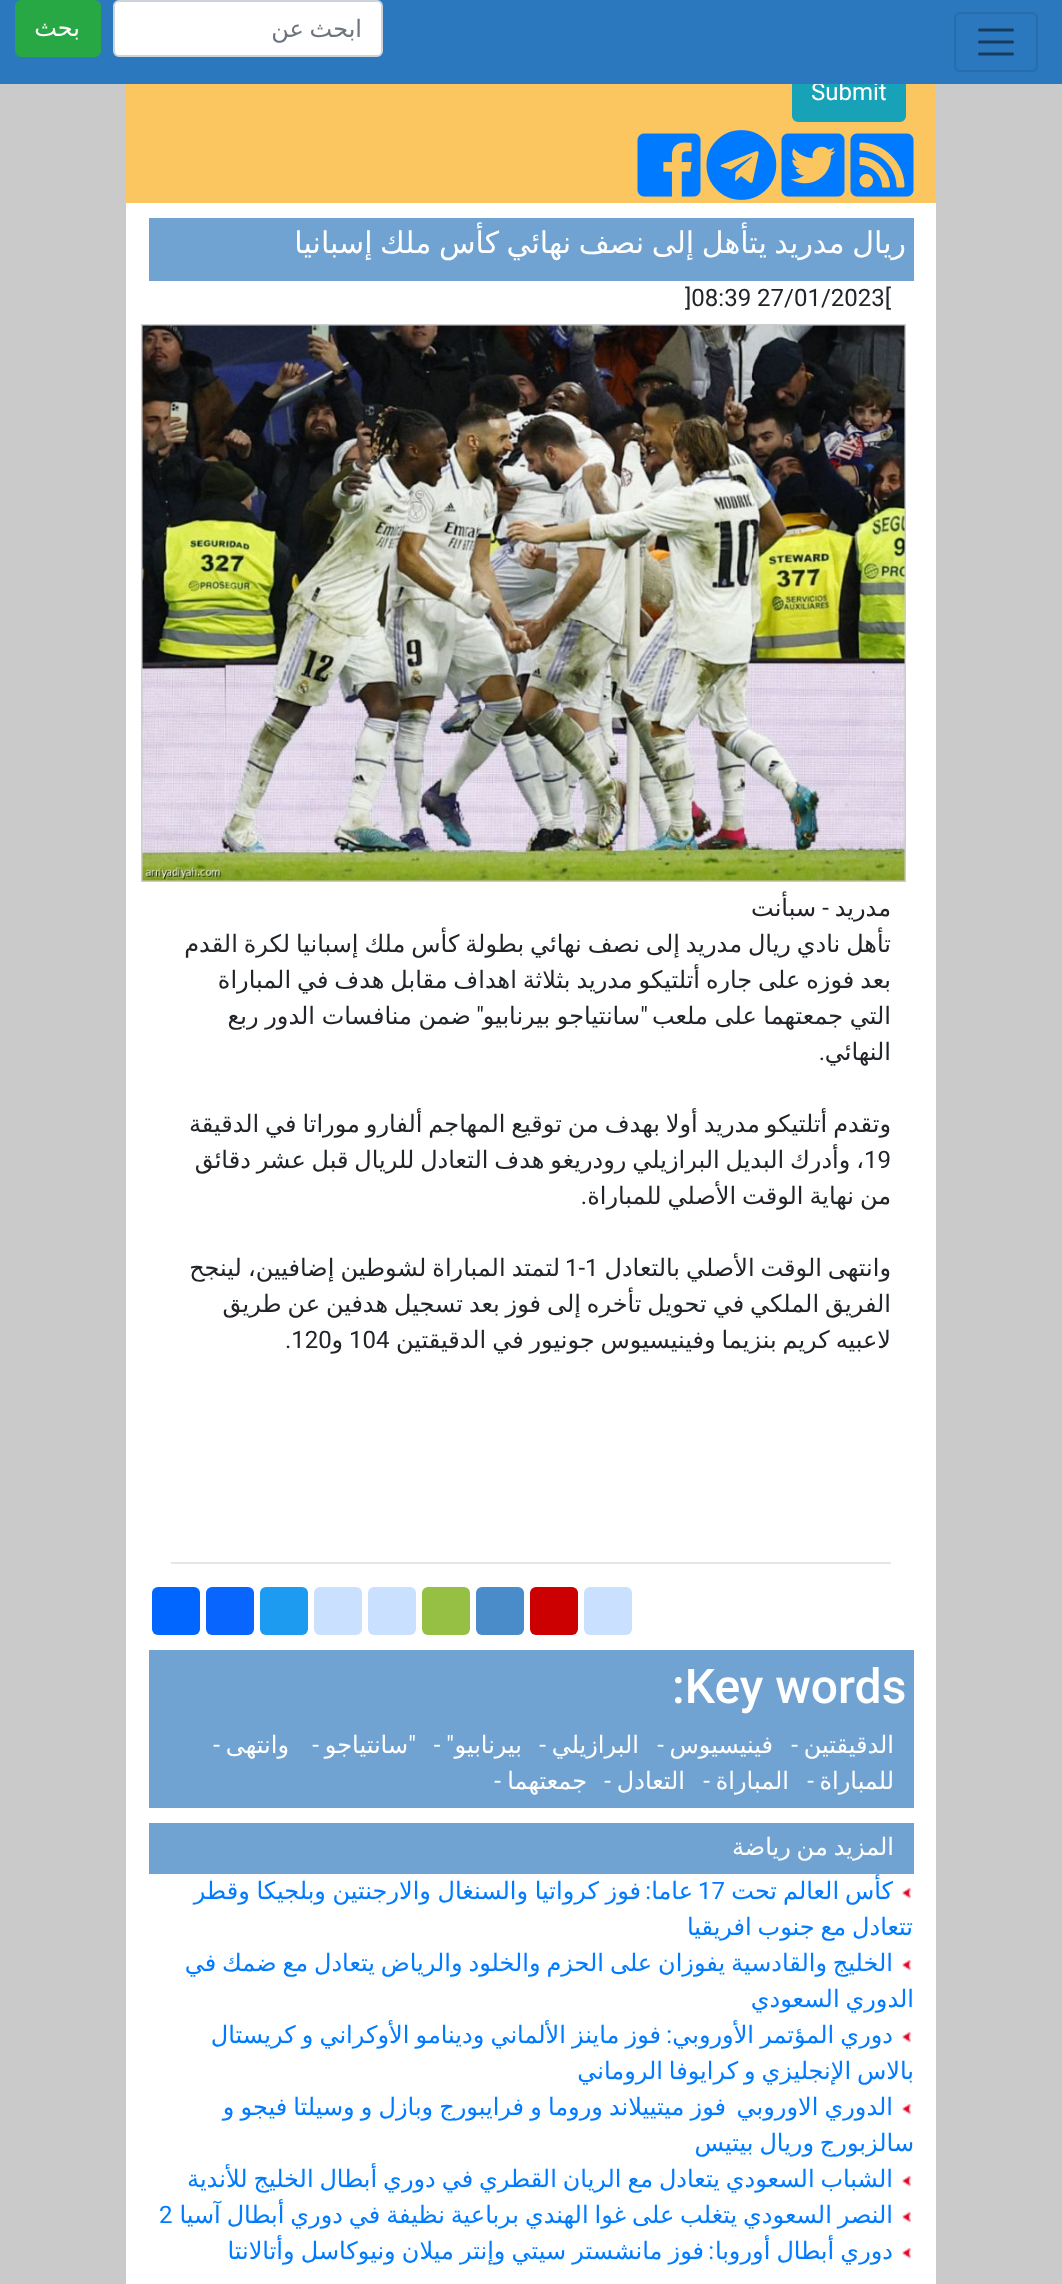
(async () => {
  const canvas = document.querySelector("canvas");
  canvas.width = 1062;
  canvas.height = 2284;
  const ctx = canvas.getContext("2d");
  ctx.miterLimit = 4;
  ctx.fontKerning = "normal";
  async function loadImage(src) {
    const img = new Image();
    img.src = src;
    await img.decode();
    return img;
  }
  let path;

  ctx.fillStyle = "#cacaca";
  ctx.fillRect(0, 0, 1062, 2284);
  ctx.fillStyle = "#ffffff";
  ctx.fillRect(126, 203, 810, 2081);
  ctx.fillStyle = "#fbc660";
  ctx.fillRect(126, 84, 810, 119);
  ctx.fillStyle = "#17a2b8";
  ctx.beginPath();
  ctx.roundRect(793, 66, 112, 55, 5);
  ctx.fill();
  ctx.strokeStyle = "#17a2b8";
  ctx.lineWidth = 2;
  ctx.stroke();
  ctx.drawImage(await loadImage("img/1.png"), 850, 133, 64, 64);
  ctx.drawImage(await loadImage("img/2.png"), 781, 133, 64, 64);
  ctx.drawImage(await loadImage("img/3.png"), 706, 130, 71, 70);
  ctx.drawImage(await loadImage("img/4.png"), 637, 133, 64, 64);
  ctx.fillStyle = "#70a3d2";
  ctx.fillRect(149, 218, 765, 63);
  ctx.strokeStyle = "#cccccc";
  ctx.strokeRect(142, 325, 763, 556);
  ctx.drawImage(await loadImage("img/5.png"), 142, 325, 763, 556);
  ctx.fillStyle = "#e6e6e6";
  ctx.fillRect(171, 1562, 720, 2);
  ctx.fillStyle = "#cae0ff";
  ctx.beginPath();
  ctx.roundRect(584, 1587, 48, 48, 6);
  ctx.fill();
  ctx.fillStyle = "#cc0000";
  ctx.beginPath();
  ctx.roundRect(530, 1587, 48, 48, 6);
  ctx.fill();
  ctx.fillStyle = "#4a8bca";
  ctx.beginPath();
  ctx.roundRect(476, 1587, 48, 48, 6);
  ctx.fill();
  ctx.fillStyle = "#96c044";
  ctx.beginPath();
  ctx.roundRect(422, 1587, 48, 48, 6);
  ctx.fill();
  ctx.fillStyle = "#cae0ff";
  ctx.beginPath();
  ctx.roundRect(368, 1587, 48, 48, 6);
  ctx.fill();
  ctx.beginPath();
  ctx.roundRect(314, 1587, 48, 48, 6);
  ctx.fill();
  ctx.fillStyle = "#1d9bf0";
  ctx.beginPath();
  ctx.roundRect(260, 1587, 48, 48, 6);
  ctx.fill();
  ctx.fillStyle = "#0866ff";
  ctx.beginPath();
  ctx.roundRect(206, 1587, 48, 48, 6);
  ctx.fill();
  ctx.fillStyle = "#0166ff";
  ctx.beginPath();
  ctx.roundRect(152, 1587, 48, 48, 6);
  ctx.fill();
  ctx.fillStyle = "#70a3d2";
  ctx.fillRect(149, 1650, 765, 158);
  ctx.fillRect(149, 1823, 765, 51);
  ctx.drawImage(await loadImage("img/6.png"), 901, 1887, 10, 12);
  ctx.drawImage(await loadImage("img/6.png"), 901, 1959, 10, 12);
  ctx.drawImage(await loadImage("img/6.png"), 901, 2031, 10, 12);
  ctx.drawImage(await loadImage("img/6.png"), 901, 2103, 10, 12);
  ctx.drawImage(await loadImage("img/6.png"), 901, 2175, 10, 12);
  ctx.drawImage(await loadImage("img/6.png"), 901, 2211, 10, 12);
  ctx.drawImage(await loadImage("img/6.png"), 901, 2247, 10, 12);
  ctx.font = "24px Roboto";
  ctx.fillStyle = "#ffffff";
  ctx.fillText("Submit", 811, 100);
  ctx.fillStyle = "#2b78bf";
  ctx.fillRect(0, 0, 1062, 84);
  ctx.fillStyle = "#28a745";
  ctx.beginPath();
  ctx.roundRect(16, 1, 84, 55, 5);
  ctx.fill();
  ctx.strokeStyle = "#28a745";
  ctx.stroke();
  ctx.direction = "rtl";
  ctx.font = "24px DejaVu Sans";
  ctx.fillStyle = "#ffffff";
  ctx.fillText("بحث", 80, 36);
  ctx.beginPath();
  ctx.roundRect(114, 1, 268, 55, 5);
  ctx.fill();
  ctx.strokeStyle = "#ced4da";
  ctx.stroke();
  ctx.wordSpacing = "-1.75px";
  ctx.fillStyle = "#6c757d";
  ctx.fillText("ابحث عن", 362, 37);
  ctx.beginPath();
  ctx.roundRect(955, 13, 82, 58, 5);
  ctx.strokeStyle = "#276cac";
  ctx.stroke();
  path = new Path2D("M979.5 30H1012.5M979.5 42H1012.5M979.5 54H1012.5");
  ctx.strokeStyle = "#163c60";
  ctx.lineWidth = 3;
  ctx.lineCap = "round";
  ctx.stroke(path);
  ctx.wordSpacing = "-2px";
  ctx.font = "30px DejaVu Sans";
  ctx.fillStyle = "#ffffff";
  ctx.fillText("ريال مدريد يتأهل إلى نصف نهائي كأس ملك إسبانيا", 906, 253);
  ctx.wordSpacing = "0px";
  ctx.direction = "ltr";
  ctx.font = "24px Roboto";
  ctx.fillStyle = "#212529";
  ctx.fillText("]08:39 27/01/2023[", 685, 306);
  ctx.direction = "rtl";
  ctx.font = "24px DejaVu Sans";
  ctx.fillText("مدريد", 891, 916);
  ctx.font = "24px Roboto";
  ctx.fillText("-", 829, 916);
  ctx.font = "24px DejaVu Sans";
  ctx.fillText("سبأنت", 816, 916);
  ctx.wordSpacing = "-1.75px";
  ctx.fillText("تأهل نادي ريال مدريد إلى نصف نهائي بطولة كأس ملك إسبانيا لكرة القدم", 891, 952);
  ctx.fillText("بعد فوزه على جاره أتلتيكو مدريد بثلاثة اهداف مقابل هدف في المباراة", 891, 988);
  ctx.wordSpacing = "-1px";
  ctx.fillText("التي جمعتهما على ملعب", 891, 1024);
  ctx.wordSpacing = "0px";
  ctx.font = "24px Roboto";
  ctx.fillText("\"", 648, 1024);
  ctx.fillText("\"", 484, 1024);
  ctx.wordSpacing = "-1px";
  ctx.font = "24px DejaVu Sans";
  ctx.fillText("سانتياجو بيرنابيو", 640, 1024);
  ctx.fillText("ضمن منافسات الدور ربع", 471, 1024);
  ctx.wordSpacing = "0px";
  ctx.fillText("النهائي", 891, 1060);
  ctx.font = "24px Roboto";
  ctx.fillText(".", 825, 1060);
  ctx.wordSpacing = "-1.75px";
  ctx.font = "24px DejaVu Sans";
  ctx.fillText("وتقدم أتلتيكو مدريد أولا بهدف من توقيع المهاجم ألفارو موراتا في الدقيقة", 891, 1132);
  ctx.wordSpacing = "0px";
  ctx.direction = "ltr";
  ctx.font = "24px Roboto";
  ctx.fillText("19", 864, 1168);
  ctx.wordSpacing = "-1.75px";
  ctx.direction = "rtl";
  ctx.font = "24px DejaVu Sans";
  ctx.fillText("، وأدرك البديل البرازيلي رودريغو هدف التعادل للريال قبل عشر دقائق", 864, 1168);
  ctx.fillText("من نهاية الوقت الأصلي للمباراة", 891, 1204);
  ctx.wordSpacing = "0px";
  ctx.font = "24px Roboto";
  ctx.fillText(".", 587, 1204);
  ctx.wordSpacing = "-1.75px";
  ctx.font = "24px DejaVu Sans";
  ctx.fillText("وانتهى الوقت الأصلي بالتعادل", 891, 1276);
  ctx.wordSpacing = "0px";
  ctx.direction = "ltr";
  ctx.font = "24px Roboto";
  ctx.fillText("1-1", 565, 1276);
  ctx.wordSpacing = "-1.5px";
  ctx.direction = "rtl";
  ctx.font = "24px DejaVu Sans";
  ctx.fillText("لتمتد المباراة لشوطين إضافيين، لينجح", 560, 1276);
  ctx.wordSpacing = "-1.75px";
  ctx.fillText("الفريق الملكي في تحويل تأخره إلى فوز بعد تسجيل هدفين عن طريق", 891, 1312);
  ctx.fillText("لاعبيه كريم بنزيما وفينيسيوس جونيور في الدقيقتين", 891, 1348);
  ctx.wordSpacing = "0px";
  ctx.direction = "ltr";
  ctx.font = "24px Roboto";
  ctx.fillText("104", 349, 1348);
  ctx.fillText(".120", 285, 1348);
  ctx.direction = "rtl";
  ctx.font = "24px DejaVu Sans";
  ctx.fillText("و", 343, 1348);
  ctx.direction = "ltr";
  ctx.font = "500 48px Roboto";
  ctx.fillStyle = "#ffffff";
  ctx.fillText(":Key words", 672, 1703);
  ctx.direction = "rtl";
  ctx.font = "24px DejaVu Sans";
  ctx.fillText("الدقيقتين", 894, 1753);
  ctx.font = "24px Roboto";
  ctx.fillText("-", 798, 1753);
  ctx.font = "24px DejaVu Sans";
  ctx.fillText("فينيسيوس", 773, 1753);
  ctx.font = "24px Roboto";
  ctx.fillText("-", 664, 1753);
  ctx.font = "24px DejaVu Sans";
  ctx.fillText("البرازيلي", 639, 1753);
  ctx.font = "24px Roboto";
  ctx.fillText("-", 546, 1753);
  ctx.fillText("\" -", 454, 1753);
  ctx.font = "24px DejaVu Sans";
  ctx.fillText("بيرنابيو", 522, 1753);
  ctx.font = "24px Roboto";
  ctx.fillText("\"", 416, 1753);
  ctx.font = "24px DejaVu Sans";
  ctx.fillText("سانتياجو", 408, 1753);
  ctx.font = "24px Roboto";
  ctx.fillText("-", 319, 1753);
  ctx.font = "24px DejaVu Sans";
  ctx.fillText("وانتهى", 289, 1753);
  ctx.font = "24px Roboto";
  ctx.fillText("-", 220, 1753);
  ctx.font = "24px DejaVu Sans";
  ctx.fillText("للمباراة", 894, 1789);
  ctx.font = "24px Roboto";
  ctx.fillText("-", 814, 1789);
  ctx.font = "24px DejaVu Sans";
  ctx.fillText("المباراة", 789, 1789);
  ctx.font = "24px Roboto";
  ctx.fillText("-", 710, 1789);
  ctx.font = "24px DejaVu Sans";
  ctx.fillText("التعادل", 685, 1789);
  ctx.font = "24px Roboto";
  ctx.fillText("-", 611, 1789);
  ctx.font = "24px DejaVu Sans";
  ctx.fillText("جمعتهما", 587, 1789);
  ctx.font = "24px Roboto";
  ctx.fillText("-", 501, 1789);
  ctx.wordSpacing = "-1.75px";
  ctx.font = "24px DejaVu Sans";
  ctx.fillText("المزيد من رياضة", 894, 1855);
  ctx.fillStyle = "#007bff";
  ctx.fillText("كأس العالم تحت", 893, 1899);
  ctx.wordSpacing = "0px";
  ctx.direction = "ltr";
  ctx.font = "24px Roboto";
  ctx.fillText("17", 698, 1899);
  ctx.direction = "rtl";
  ctx.font = "24px DejaVu Sans";
  ctx.fillText("عاما", 693, 1899);
  ctx.font = "24px Roboto";
  ctx.fillText(":", 651, 1899);
  ctx.wordSpacing = "-1px";
  ctx.font = "24px DejaVu Sans";
  ctx.fillText("فوز كرواتيا والسنغال والارجنتين وبلجيكا وقطر", 641, 1899);
  ctx.wordSpacing = "-1.75px";
  for (const [text, x, y] of [
    ["تتعادل مع جنوب افريقيا", 913, 1935],
    ["الخليج والقادسية يفوزان على الحزم والخلود والرياض يتعادل مع ضمك في", 893, 1971],
    ["الدوري السعودي", 914, 2007],
  ]) {
    ctx.fillText(text, x, y);
  }
  ctx.wordSpacing = "-1.5px";
  ctx.fillText("دوري المؤتمر الأوروبي", 893, 2043);
  ctx.fillText("فوز ماينز الألماني ودينامو الأوكراني و كريستال", 661, 2043);
  ctx.wordSpacing = "0px";
  ctx.font = "24px Roboto";
  ctx.fillText(":", 672, 2043);
  ctx.wordSpacing = "-1.75px";
  ctx.font = "24px DejaVu Sans";
  ctx.fillText("بالاس الإنجليزي و كرايوفا الروماني", 914, 2079);
  ctx.wordSpacing = "-1.5px";
  ctx.fillText("الدوري الاوروبي", 893, 2115);
  ctx.fillText("فوز ميتييلاند وروما و فرايبورج وبازل و وسيلتا فيجو و", 726, 2115);
  ctx.wordSpacing = "-1.75px";
  for (const [text, x, y] of [
    ["سالزبورج وريال بيتيس", 914, 2151],
    ["الشباب السعودي يتعادل مع الريان القطري في دوري أبطال الخليج للأندية", 893, 2187],
    ["النصر السعودي يتغلب على غوا الهندي برباعية نظيفة في دوري أبطال آسيا", 893, 2223],
  ]) {
    ctx.fillText(text, x, y);
  }
  ctx.wordSpacing = "0px";
  ctx.direction = "ltr";
  ctx.font = "24px Roboto";
  ctx.fillText("2", 159, 2223);
  ctx.wordSpacing = "-1.5px";
  ctx.direction = "rtl";
  ctx.font = "24px DejaVu Sans";
  ctx.fillText("دوري أبطال أوروبا", 893, 2259);
  ctx.fillText("فوز مانشستر سيتي وإنتر ميلان ونيوكاسل وأتالانتا", 704, 2259);
  ctx.wordSpacing = "0px";
  ctx.font = "24px Roboto";
  ctx.fillText(":", 714, 2259);
})();
